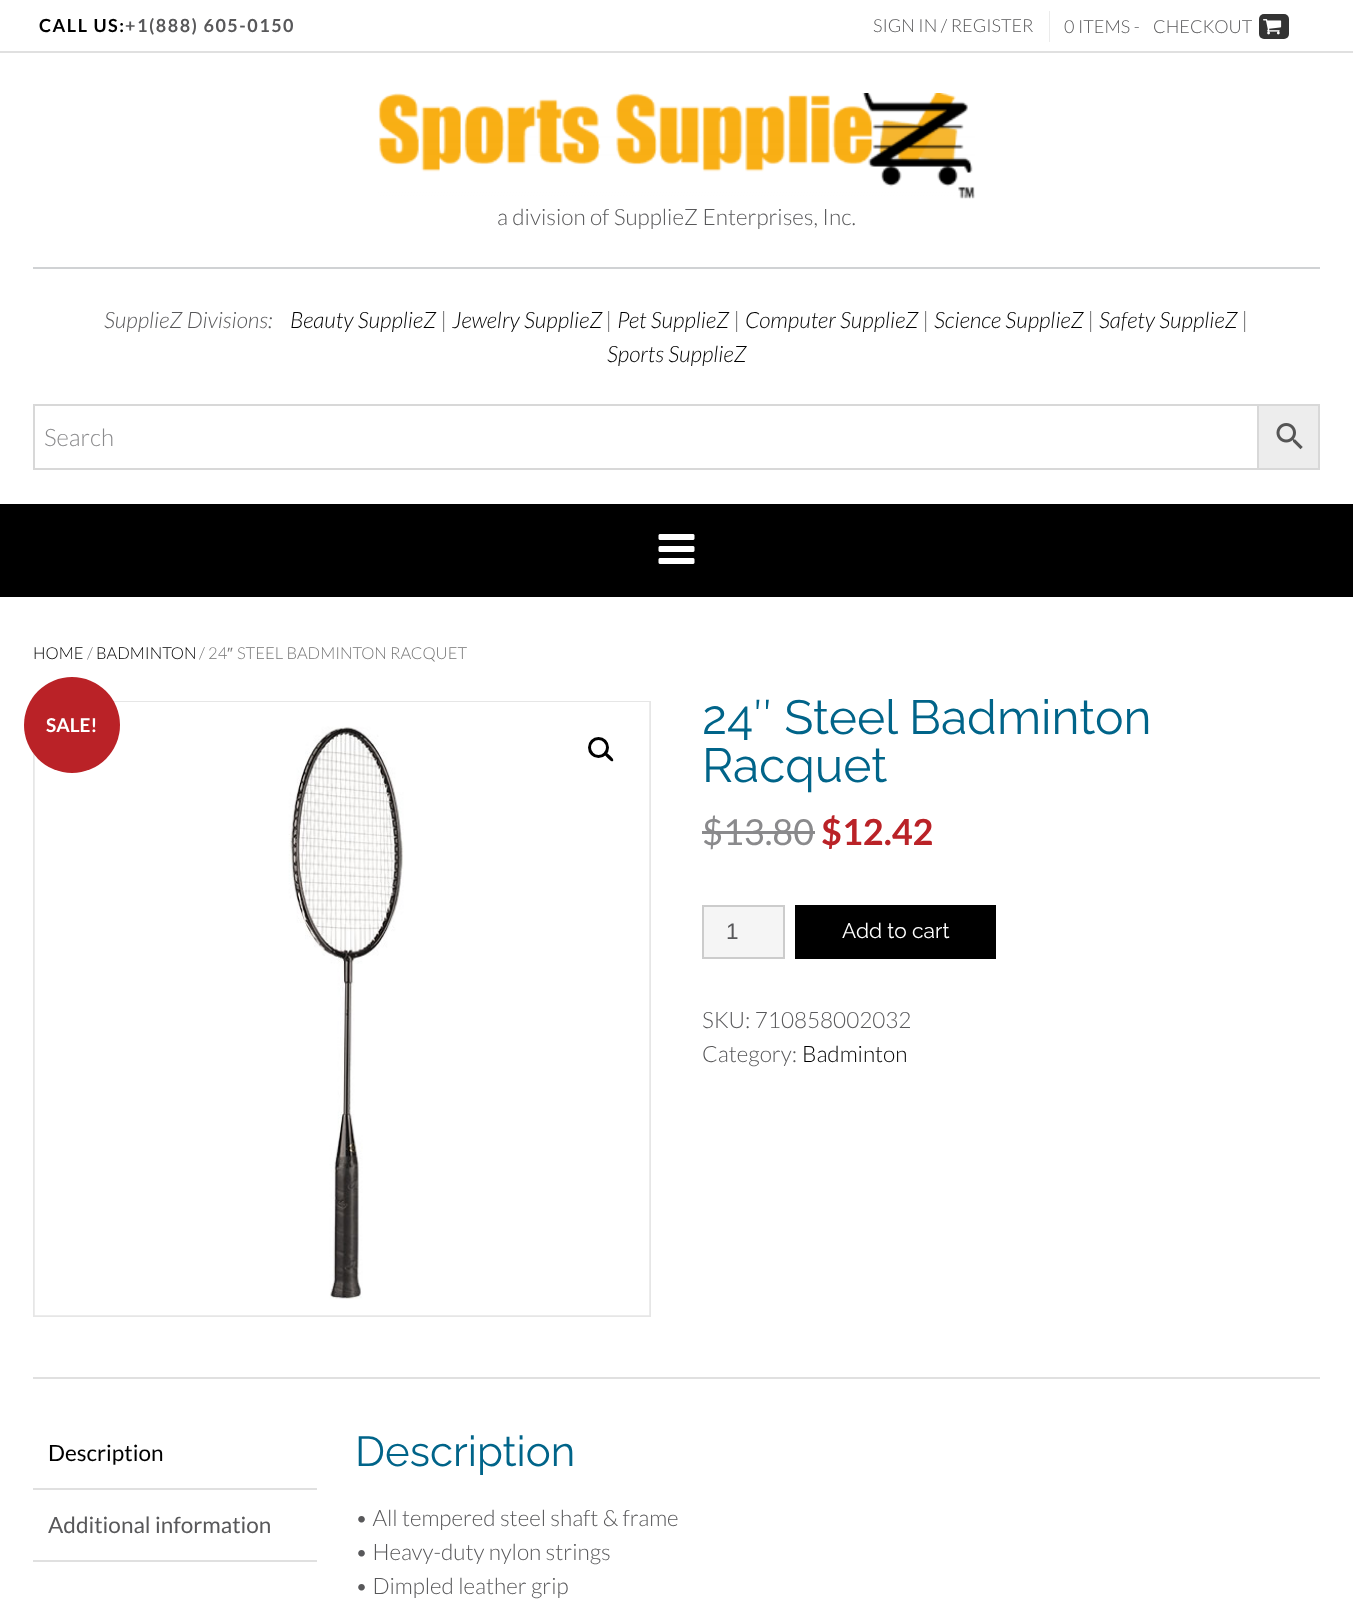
(async () => {
  const canvas = document.querySelector("canvas");
  canvas.width = 1353;
  canvas.height = 1606;
  const ctx = canvas.getContext("2d");
  ctx.miterLimit = 4;
  ctx.fontKerning = "normal";
  async function loadImage(src) {
    const img = new Image();
    img.src = src;
    await img.decode();
    return img;
  }
  let path;

  ctx.fillStyle = "#ffffff";
  ctx.fillRect(0, 0, 1353, 1606);
  ctx.fillStyle = "#e0e0e0";
  ctx.fillRect(0, 51, 1353, 2);
  ctx.fillStyle = "#ebebeb";
  ctx.fillRect(1049, 11, 1, 31);
  ctx.fillStyle = "#333333";
  ctx.beginPath();
  ctx.roundRect(1259, 14, 30, 25, 5);
  ctx.fill();
  ctx.drawImage(await loadImage("img/1.png"), 1263, 19, 19, 16);
  ctx.drawImage(await loadImage("img/2.png"), 378, 93, 597, 106);
  ctx.fillStyle = "#d0d2d4";
  ctx.fillRect(33, 267, 1287, 2);
  ctx.fillStyle = "#ededed";
  ctx.beginPath();
  ctx.rect(1258, 405, 61, 64);
  ctx.fill();
  ctx.strokeStyle = "#d8d8d8";
  ctx.lineWidth = 2;
  ctx.stroke();
  ctx.strokeRect(34, 405, 1224, 64);
  ctx.drawImage(await loadImage("img/3.png"), 1276, 423, 27, 27);
  ctx.fillStyle = "#000000";
  ctx.fillRect(0, 504, 1353, 93);
  ctx.drawImage(await loadImage("img/4.png"), 658, 534, 37, 30);
  ctx.strokeStyle = "#e6e6e6";
  ctx.strokeRect(34, 702, 616, 614);
  ctx.drawImage(await loadImage("img/5.png"), 34, 702, 616, 614);
  ctx.beginPath();
  ctx.arc(598.5, 747.5, 9, 0, Math.PI * 2);
  ctx.strokeStyle = "#000000";
  ctx.lineWidth = 3;
  ctx.stroke();
  path = new Path2D("M604.5 752.5C606 751 609 755 610 755.5C610.5 756.5 614.5 759.5 613 761C611.5 762.5 608.5 758.5 607.5 758C607 757 603 754 604.5 752.5Z");
  ctx.fill(path);
  ctx.fillStyle = "#8a8a8c";
  ctx.fillRect(702, 831, 113, 3);
  ctx.fillStyle = "#f5f5f5";
  ctx.beginPath();
  ctx.rect(703, 906, 81, 52);
  ctx.fill();
  ctx.strokeStyle = "#cccccc";
  ctx.lineWidth = 2;
  ctx.stroke();
  ctx.fillStyle = "#000000";
  ctx.fillRect(795, 905, 201, 54);
  ctx.fillStyle = "#ba2227";
  ctx.beginPath();
  ctx.arc(72, 725, 48, 0, Math.PI * 2);
  ctx.fill();
  for (const [x, y, w, h, color] of [
    [33, 1377, 1287, 2, "#e0e0e0"],
    [33, 1488, 284, 2, "#e0e0e0"],
    [33, 1560, 284, 2, "#e0e0e0"],
  ]) {
    ctx.fillStyle = color;
    ctx.fillRect(x, y, w, h);
  }
  ctx.letterSpacing = "1.5px";
  ctx.font = "bold 18px Lato";
  ctx.fillStyle = "#000000";
  ctx.fillText("CALL US:", 39, 32);
  ctx.fillStyle = "#58585a";
  ctx.fillText("+1(888) 605-0150", 125, 32);
  ctx.letterSpacing = "0px";
  ctx.font = "300 18px Lato";
  for (const [text, x, y] of [
    ["SIGN IN / REGISTER", 873, 32],
    ["0 ITEMS -", 1064, 33],
    ["CHECKOUT", 1153, 33],
  ]) {
    ctx.fillText(text, x, y);
  }
  ctx.font = "300 22.5px Lato";
  ctx.fillText("a division of SupplieZ Enterprises, Inc.", 497, 225);
  ctx.font = "italic 300 22.5px Lato";
  ctx.fillText("SupplieZ Divisions:", 104, 328);
  ctx.fillStyle = "#000000";
  ctx.fillText("Beauty SupplieZ", 290, 328);
  ctx.fillStyle = "#58585a";
  ctx.fillText("|", 441, 328);
  ctx.fillStyle = "#000000";
  ctx.fillText("Jewelry SupplieZ", 452, 328);
  ctx.fillStyle = "#58585a";
  ctx.fillText("|", 606, 328);
  ctx.fillStyle = "#000000";
  ctx.fillText("Pet SupplieZ", 617, 328);
  ctx.fillStyle = "#58585a";
  ctx.fillText("|", 734, 328);
  ctx.fillStyle = "#000000";
  ctx.fillText("Computer SupplieZ", 745, 328);
  ctx.fillStyle = "#58585a";
  ctx.fillText("|", 923, 328);
  ctx.fillStyle = "#000000";
  ctx.fillText("Science SupplieZ", 934, 328);
  ctx.fillStyle = "#58585a";
  ctx.fillText("|", 1088, 328);
  ctx.fillStyle = "#000000";
  ctx.fillText("Safety SupplieZ", 1099, 328);
  ctx.fillStyle = "#58585a";
  ctx.fillText("|", 1242, 328);
  ctx.fillStyle = "#000000";
  ctx.fillText("Sports SupplieZ", 607, 362);
  ctx.font = "300 24px Lato";
  ctx.fillStyle = "#8a8a8c";
  ctx.fillText("Search", 44, 446);
  ctx.font = "300 16.5px Lato";
  ctx.fillStyle = "#000000";
  ctx.fillText("HOME", 33, 659);
  ctx.fillStyle = "#777777";
  ctx.fillText("/", 87, 659);
  ctx.fillStyle = "#000000";
  ctx.fillText("BADMINTON", 96, 659);
  ctx.fillStyle = "#777777";
  ctx.fillText("/ 24", 199, 659);
  ctx.font = "16.5px Liberation Sans";
  ctx.fillText("″", 227, 659);
  ctx.font = "300 16.5px Lato";
  ctx.fillText("STEEL BADMINTON RACQUET", 237, 659);
  ctx.font = "48px Raleway";
  ctx.fillStyle = "#006489";
  ctx.fillText("24″ Steel Badminton", 702, 734);
  ctx.fillText("Racquet", 702, 782);
  ctx.font = "36px Lato";
  ctx.fillStyle = "#8a8a8c";
  ctx.fillText("$13.80", 702, 845);
  ctx.font = "bold 36px Lato";
  ctx.fillStyle = "#ba2227";
  ctx.fillText("$12.42", 821, 845);
  ctx.font = "22.5px Liberation Sans";
  ctx.fillStyle = "#58585a";
  ctx.fillText("1", 726, 939);
  ctx.font = "21px Raleway";
  ctx.fillStyle = "#ffffff";
  ctx.fillText("Add to cart", 842, 938);
  ctx.font = "300 22.5px Lato";
  ctx.fillStyle = "#58585a";
  ctx.fillText("SKU: 710858002032", 702, 1028);
  ctx.fillText("Category:", 702, 1062);
  ctx.fillStyle = "#000000";
  ctx.fillText("Badminton", 802, 1062);
  ctx.font = "bold 19px Lato";
  ctx.fillStyle = "#ffffff";
  ctx.fillText("SALE!", 46, 732);
  ctx.font = "22.5px Lato";
  ctx.fillStyle = "#000000";
  ctx.fillText("Description", 48, 1461);
  ctx.fillStyle = "#58585a";
  ctx.fillText("Additional information", 48, 1533);
  ctx.font = "42px Raleway";
  ctx.fillStyle = "#006489";
  ctx.fillText("Description", 355, 1466);
  ctx.font = "300 22.5px Lato";
  ctx.fillStyle = "#58585a";
  for (const [text, x, y] of [
    ["• All tempered steel shaft & frame", 355, 1526],
    ["• Heavy-duty nylon strings", 355, 1560],
    ["• Dimpled leather grip", 355, 1594],
  ]) {
    ctx.fillText(text, x, y);
  }
})();
